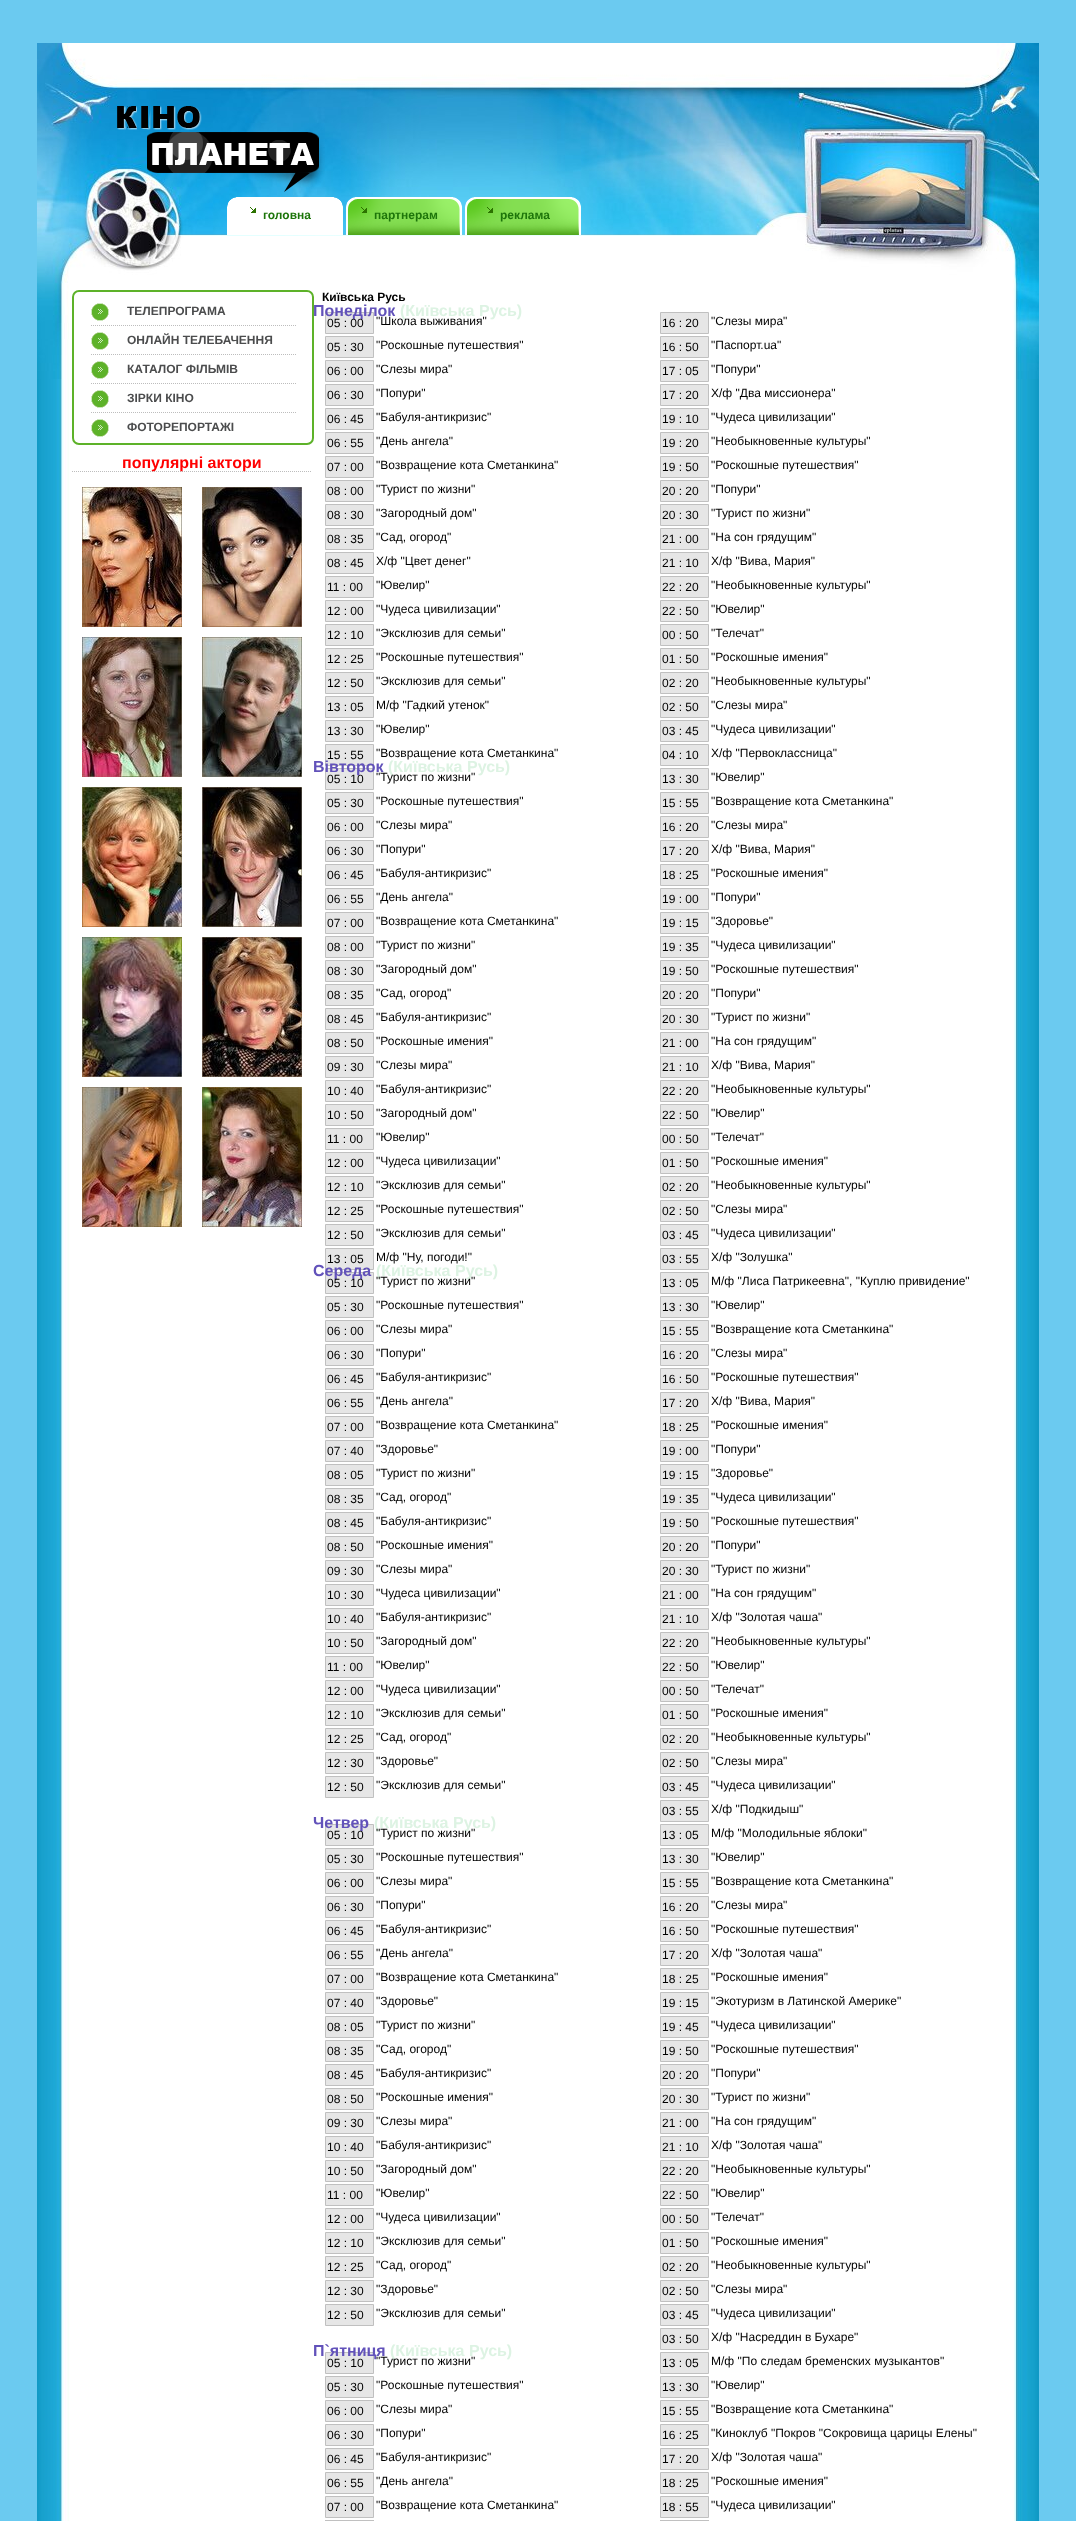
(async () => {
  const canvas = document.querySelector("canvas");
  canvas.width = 1076;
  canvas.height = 2521;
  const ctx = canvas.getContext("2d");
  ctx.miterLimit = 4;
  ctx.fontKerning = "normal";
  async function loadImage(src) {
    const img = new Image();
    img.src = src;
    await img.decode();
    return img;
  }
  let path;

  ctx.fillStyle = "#6bcaf0";
  ctx.fillRect(0, 0, 1076, 2521);
  ctx.drawImage(await loadImage("img/1.png"), 37, 379, 1002, 2142);
  ctx.drawImage(await loadImage("img/2.png"), 37, 43, 1002, 336);
  ctx.drawImage(await loadImage("img/3.png"), 117, 106, 208, 86);
  ctx.drawImage(await loadImage("img/4.png"), 227, 197, 116, 38);
  ctx.drawImage(await loadImage("img/5.png"), 250, 207, 6, 6);
  ctx.drawImage(await loadImage("img/6.png"), 346, 197, 116, 38);
  ctx.drawImage(await loadImage("img/7.png"), 361, 207, 6, 6);
  ctx.drawImage(await loadImage("img/8.png"), 465, 197, 116, 38);
  ctx.drawImage(await loadImage("img/9.png"), 487, 207, 6, 6);
  ctx.beginPath();
  ctx.roundRect(73, 291, 240, 153, 6);
  ctx.strokeStyle = "#5db229";
  ctx.lineWidth = 2;
  ctx.stroke();
  ctx.drawImage(await loadImage("img/10.png"), 91, 303, 18, 18);
  path = new Path2D("M91 325.5H297");
  ctx.strokeStyle = "#bdbdbd";
  ctx.lineWidth = 1;
  ctx.setLineDash([1, 1]);
  ctx.stroke(path);
  ctx.drawImage(await loadImage("img/10.png"), 91, 332, 18, 18);
  path = new Path2D("M91 354.5H297");
  ctx.stroke(path);
  ctx.drawImage(await loadImage("img/10.png"), 91, 361, 18, 18);
  path = new Path2D("M91 383.5H297");
  ctx.stroke(path);
  ctx.drawImage(await loadImage("img/10.png"), 91, 390, 18, 18);
  path = new Path2D("M91 412.5H297");
  ctx.stroke(path);
  ctx.drawImage(await loadImage("img/10.png"), 91, 419, 18, 18);
  path = new Path2D("M72 471.5H312");
  ctx.stroke(path);
  ctx.drawImage(await loadImage("img/11.png"), 82, 487, 100, 140);
  ctx.drawImage(await loadImage("img/12.png"), 202, 487, 100, 140);
  ctx.drawImage(await loadImage("img/13.png"), 82, 637, 100, 140);
  ctx.drawImage(await loadImage("img/14.png"), 202, 637, 100, 140);
  ctx.drawImage(await loadImage("img/15.png"), 82, 787, 100, 140);
  ctx.drawImage(await loadImage("img/16.png"), 202, 787, 100, 140);
  ctx.drawImage(await loadImage("img/17.png"), 82, 937, 100, 140);
  ctx.drawImage(await loadImage("img/18.png"), 202, 937, 100, 140);
  ctx.drawImage(await loadImage("img/19.png"), 82, 1087, 100, 140);
  ctx.drawImage(await loadImage("img/20.png"), 202, 1087, 100, 140);
  ctx.fillStyle = "#e6e6e6";
  ctx.beginPath();
  ctx.rect(325.5, 312.5, 48, 21);
  ctx.fill();
  ctx.strokeStyle = "#c0c0c0";
  ctx.setLineDash([]);
  ctx.stroke();
  ctx.beginPath();
  ctx.rect(325.5, 336.5, 48, 21);
  ctx.fill();
  ctx.stroke();
  ctx.beginPath();
  ctx.rect(325.5, 360.5, 48, 21);
  ctx.fill();
  ctx.stroke();
  ctx.beginPath();
  ctx.rect(325.5, 384.5, 48, 21);
  ctx.fill();
  ctx.stroke();
  ctx.beginPath();
  ctx.rect(325.5, 408.5, 48, 21);
  ctx.fill();
  ctx.stroke();
  ctx.beginPath();
  ctx.rect(325.5, 432.5, 48, 21);
  ctx.fill();
  ctx.stroke();
  ctx.beginPath();
  ctx.rect(325.5, 456.5, 48, 21);
  ctx.fill();
  ctx.stroke();
  ctx.beginPath();
  ctx.rect(325.5, 480.5, 48, 21);
  ctx.fill();
  ctx.stroke();
  ctx.beginPath();
  ctx.rect(325.5, 504.5, 48, 21);
  ctx.fill();
  ctx.stroke();
  ctx.beginPath();
  ctx.rect(325.5, 528.5, 48, 21);
  ctx.fill();
  ctx.stroke();
  ctx.beginPath();
  ctx.rect(325.5, 552.5, 48, 21);
  ctx.fill();
  ctx.stroke();
  ctx.beginPath();
  ctx.rect(325.5, 576.5, 48, 21);
  ctx.fill();
  ctx.stroke();
  ctx.beginPath();
  ctx.rect(325.5, 600.5, 48, 21);
  ctx.fill();
  ctx.stroke();
  ctx.beginPath();
  ctx.rect(325.5, 624.5, 48, 21);
  ctx.fill();
  ctx.stroke();
  ctx.beginPath();
  ctx.rect(325.5, 648.5, 48, 21);
  ctx.fill();
  ctx.stroke();
  ctx.beginPath();
  ctx.rect(325.5, 672.5, 48, 21);
  ctx.fill();
  ctx.stroke();
  ctx.beginPath();
  ctx.rect(325.5, 696.5, 48, 21);
  ctx.fill();
  ctx.stroke();
  ctx.beginPath();
  ctx.rect(325.5, 720.5, 48, 21);
  ctx.fill();
  ctx.stroke();
  ctx.beginPath();
  ctx.rect(325.5, 744.5, 48, 21);
  ctx.fill();
  ctx.stroke();
  ctx.beginPath();
  ctx.rect(660.5, 312.5, 48, 21);
  ctx.fill();
  ctx.stroke();
  ctx.beginPath();
  ctx.rect(660.5, 336.5, 48, 21);
  ctx.fill();
  ctx.stroke();
  ctx.beginPath();
  ctx.rect(660.5, 360.5, 48, 21);
  ctx.fill();
  ctx.stroke();
  ctx.beginPath();
  ctx.rect(660.5, 384.5, 48, 21);
  ctx.fill();
  ctx.stroke();
  ctx.beginPath();
  ctx.rect(660.5, 408.5, 48, 21);
  ctx.fill();
  ctx.stroke();
  ctx.beginPath();
  ctx.rect(660.5, 432.5, 48, 21);
  ctx.fill();
  ctx.stroke();
  ctx.beginPath();
  ctx.rect(660.5, 456.5, 48, 21);
  ctx.fill();
  ctx.stroke();
  ctx.beginPath();
  ctx.rect(660.5, 480.5, 48, 21);
  ctx.fill();
  ctx.stroke();
  ctx.beginPath();
  ctx.rect(660.5, 504.5, 48, 21);
  ctx.fill();
  ctx.stroke();
  ctx.beginPath();
  ctx.rect(660.5, 528.5, 48, 21);
  ctx.fill();
  ctx.stroke();
  ctx.beginPath();
  ctx.rect(660.5, 552.5, 48, 21);
  ctx.fill();
  ctx.stroke();
  ctx.beginPath();
  ctx.rect(660.5, 576.5, 48, 21);
  ctx.fill();
  ctx.stroke();
  ctx.beginPath();
  ctx.rect(660.5, 600.5, 48, 21);
  ctx.fill();
  ctx.stroke();
  ctx.beginPath();
  ctx.rect(660.5, 624.5, 48, 21);
  ctx.fill();
  ctx.stroke();
  ctx.beginPath();
  ctx.rect(660.5, 648.5, 48, 21);
  ctx.fill();
  ctx.stroke();
  ctx.beginPath();
  ctx.rect(660.5, 672.5, 48, 21);
  ctx.fill();
  ctx.stroke();
  ctx.beginPath();
  ctx.rect(660.5, 696.5, 48, 21);
  ctx.fill();
  ctx.stroke();
  ctx.beginPath();
  ctx.rect(660.5, 720.5, 48, 21);
  ctx.fill();
  ctx.stroke();
  ctx.beginPath();
  ctx.rect(660.5, 744.5, 48, 21);
  ctx.fill();
  ctx.stroke();
  ctx.beginPath();
  ctx.rect(325.5, 768.5, 48, 21);
  ctx.fill();
  ctx.stroke();
  ctx.beginPath();
  ctx.rect(325.5, 792.5, 48, 21);
  ctx.fill();
  ctx.stroke();
  ctx.beginPath();
  ctx.rect(325.5, 816.5, 48, 21);
  ctx.fill();
  ctx.stroke();
  ctx.beginPath();
  ctx.rect(325.5, 840.5, 48, 21);
  ctx.fill();
  ctx.stroke();
  ctx.beginPath();
  ctx.rect(325.5, 864.5, 48, 21);
  ctx.fill();
  ctx.stroke();
  ctx.beginPath();
  ctx.rect(325.5, 888.5, 48, 21);
  ctx.fill();
  ctx.stroke();
  ctx.beginPath();
  ctx.rect(325.5, 912.5, 48, 21);
  ctx.fill();
  ctx.stroke();
  ctx.beginPath();
  ctx.rect(325.5, 936.5, 48, 21);
  ctx.fill();
  ctx.stroke();
  ctx.beginPath();
  ctx.rect(325.5, 960.5, 48, 21);
  ctx.fill();
  ctx.stroke();
  ctx.beginPath();
  ctx.rect(325.5, 984.5, 48, 21);
  ctx.fill();
  ctx.stroke();
  ctx.beginPath();
  ctx.rect(325.5, 1008.5, 48, 21);
  ctx.fill();
  ctx.stroke();
  ctx.beginPath();
  ctx.rect(325.5, 1032.5, 48, 21);
  ctx.fill();
  ctx.stroke();
  ctx.beginPath();
  ctx.rect(325.5, 1056.5, 48, 21);
  ctx.fill();
  ctx.stroke();
  ctx.beginPath();
  ctx.rect(325.5, 1080.5, 48, 21);
  ctx.fill();
  ctx.stroke();
  ctx.beginPath();
  ctx.rect(325.5, 1104.5, 48, 21);
  ctx.fill();
  ctx.stroke();
  ctx.beginPath();
  ctx.rect(325.5, 1128.5, 48, 21);
  ctx.fill();
  ctx.stroke();
  ctx.beginPath();
  ctx.rect(325.5, 1152.5, 48, 21);
  ctx.fill();
  ctx.stroke();
  ctx.beginPath();
  ctx.rect(325.5, 1176.5, 48, 21);
  ctx.fill();
  ctx.stroke();
  ctx.beginPath();
  ctx.rect(325.5, 1200.5, 48, 21);
  ctx.fill();
  ctx.stroke();
  ctx.beginPath();
  ctx.rect(325.5, 1224.5, 48, 21);
  ctx.fill();
  ctx.stroke();
  ctx.beginPath();
  ctx.rect(325.5, 1248.5, 48, 21);
  ctx.fill();
  ctx.stroke();
  ctx.beginPath();
  ctx.rect(660.5, 768.5, 48, 21);
  ctx.fill();
  ctx.stroke();
  ctx.beginPath();
  ctx.rect(660.5, 792.5, 48, 21);
  ctx.fill();
  ctx.stroke();
  ctx.beginPath();
  ctx.rect(660.5, 816.5, 48, 21);
  ctx.fill();
  ctx.stroke();
  ctx.beginPath();
  ctx.rect(660.5, 840.5, 48, 21);
  ctx.fill();
  ctx.stroke();
  ctx.beginPath();
  ctx.rect(660.5, 864.5, 48, 21);
  ctx.fill();
  ctx.stroke();
  ctx.beginPath();
  ctx.rect(660.5, 888.5, 48, 21);
  ctx.fill();
  ctx.stroke();
  ctx.beginPath();
  ctx.rect(660.5, 912.5, 48, 21);
  ctx.fill();
  ctx.stroke();
  ctx.beginPath();
  ctx.rect(660.5, 936.5, 48, 21);
  ctx.fill();
  ctx.stroke();
  ctx.beginPath();
  ctx.rect(660.5, 960.5, 48, 21);
  ctx.fill();
  ctx.stroke();
  ctx.beginPath();
  ctx.rect(660.5, 984.5, 48, 21);
  ctx.fill();
  ctx.stroke();
  ctx.beginPath();
  ctx.rect(660.5, 1008.5, 48, 21);
  ctx.fill();
  ctx.stroke();
  ctx.beginPath();
  ctx.rect(660.5, 1032.5, 48, 21);
  ctx.fill();
  ctx.stroke();
  ctx.beginPath();
  ctx.rect(660.5, 1056.5, 48, 21);
  ctx.fill();
  ctx.stroke();
  ctx.beginPath();
  ctx.rect(660.5, 1080.5, 48, 21);
  ctx.fill();
  ctx.stroke();
  ctx.beginPath();
  ctx.rect(660.5, 1104.5, 48, 21);
  ctx.fill();
  ctx.stroke();
  ctx.beginPath();
  ctx.rect(660.5, 1128.5, 48, 21);
  ctx.fill();
  ctx.stroke();
  ctx.beginPath();
  ctx.rect(660.5, 1152.5, 48, 21);
  ctx.fill();
  ctx.stroke();
  ctx.beginPath();
  ctx.rect(660.5, 1176.5, 48, 21);
  ctx.fill();
  ctx.stroke();
  ctx.beginPath();
  ctx.rect(660.5, 1200.5, 48, 21);
  ctx.fill();
  ctx.stroke();
  ctx.beginPath();
  ctx.rect(660.5, 1224.5, 48, 21);
  ctx.fill();
  ctx.stroke();
  ctx.beginPath();
  ctx.rect(660.5, 1248.5, 48, 21);
  ctx.fill();
  ctx.stroke();
  ctx.beginPath();
  ctx.rect(325.5, 1272.5, 48, 21);
  ctx.fill();
  ctx.stroke();
  ctx.beginPath();
  ctx.rect(325.5, 1296.5, 48, 21);
  ctx.fill();
  ctx.stroke();
  ctx.beginPath();
  ctx.rect(325.5, 1320.5, 48, 21);
  ctx.fill();
  ctx.stroke();
  ctx.beginPath();
  ctx.rect(325.5, 1344.5, 48, 21);
  ctx.fill();
  ctx.stroke();
  ctx.beginPath();
  ctx.rect(325.5, 1368.5, 48, 21);
  ctx.fill();
  ctx.stroke();
  ctx.beginPath();
  ctx.rect(325.5, 1392.5, 48, 21);
  ctx.fill();
  ctx.stroke();
  ctx.beginPath();
  ctx.rect(325.5, 1416.5, 48, 21);
  ctx.fill();
  ctx.stroke();
  ctx.beginPath();
  ctx.rect(325.5, 1440.5, 48, 21);
  ctx.fill();
  ctx.stroke();
  ctx.beginPath();
  ctx.rect(325.5, 1464.5, 48, 21);
  ctx.fill();
  ctx.stroke();
  ctx.beginPath();
  ctx.rect(325.5, 1488.5, 48, 21);
  ctx.fill();
  ctx.stroke();
  ctx.beginPath();
  ctx.rect(325.5, 1512.5, 48, 21);
  ctx.fill();
  ctx.stroke();
  ctx.beginPath();
  ctx.rect(325.5, 1536.5, 48, 21);
  ctx.fill();
  ctx.stroke();
  ctx.beginPath();
  ctx.rect(325.5, 1560.5, 48, 21);
  ctx.fill();
  ctx.stroke();
  ctx.beginPath();
  ctx.rect(325.5, 1584.5, 48, 21);
  ctx.fill();
  ctx.stroke();
  ctx.beginPath();
  ctx.rect(325.5, 1608.5, 48, 21);
  ctx.fill();
  ctx.stroke();
  ctx.beginPath();
  ctx.rect(325.5, 1632.5, 48, 21);
  ctx.fill();
  ctx.stroke();
  ctx.beginPath();
  ctx.rect(325.5, 1656.5, 48, 21);
  ctx.fill();
  ctx.stroke();
  ctx.beginPath();
  ctx.rect(325.5, 1680.5, 48, 21);
  ctx.fill();
  ctx.stroke();
  ctx.beginPath();
  ctx.rect(325.5, 1704.5, 48, 21);
  ctx.fill();
  ctx.stroke();
  ctx.beginPath();
  ctx.rect(325.5, 1728.5, 48, 21);
  ctx.fill();
  ctx.stroke();
  ctx.beginPath();
  ctx.rect(325.5, 1752.5, 48, 21);
  ctx.fill();
  ctx.stroke();
  ctx.beginPath();
  ctx.rect(325.5, 1776.5, 48, 21);
  ctx.fill();
  ctx.stroke();
  ctx.beginPath();
  ctx.rect(660.5, 1272.5, 48, 21);
  ctx.fill();
  ctx.stroke();
  ctx.beginPath();
  ctx.rect(660.5, 1296.5, 48, 21);
  ctx.fill();
  ctx.stroke();
  ctx.beginPath();
  ctx.rect(660.5, 1320.5, 48, 21);
  ctx.fill();
  ctx.stroke();
  ctx.beginPath();
  ctx.rect(660.5, 1344.5, 48, 21);
  ctx.fill();
  ctx.stroke();
  ctx.beginPath();
  ctx.rect(660.5, 1368.5, 48, 21);
  ctx.fill();
  ctx.stroke();
  ctx.beginPath();
  ctx.rect(660.5, 1392.5, 48, 21);
  ctx.fill();
  ctx.stroke();
  ctx.beginPath();
  ctx.rect(660.5, 1416.5, 48, 21);
  ctx.fill();
  ctx.stroke();
  ctx.beginPath();
  ctx.rect(660.5, 1440.5, 48, 21);
  ctx.fill();
  ctx.stroke();
  ctx.beginPath();
  ctx.rect(660.5, 1464.5, 48, 21);
  ctx.fill();
  ctx.stroke();
  ctx.beginPath();
  ctx.rect(660.5, 1488.5, 48, 21);
  ctx.fill();
  ctx.stroke();
  ctx.beginPath();
  ctx.rect(660.5, 1512.5, 48, 21);
  ctx.fill();
  ctx.stroke();
  ctx.beginPath();
  ctx.rect(660.5, 1536.5, 48, 21);
  ctx.fill();
  ctx.stroke();
  ctx.beginPath();
  ctx.rect(660.5, 1560.5, 48, 21);
  ctx.fill();
  ctx.stroke();
  ctx.beginPath();
  ctx.rect(660.5, 1584.5, 48, 21);
  ctx.fill();
  ctx.stroke();
  ctx.beginPath();
  ctx.rect(660.5, 1608.5, 48, 21);
  ctx.fill();
  ctx.stroke();
  ctx.beginPath();
  ctx.rect(660.5, 1632.5, 48, 21);
  ctx.fill();
  ctx.stroke();
  ctx.beginPath();
  ctx.rect(660.5, 1656.5, 48, 21);
  ctx.fill();
  ctx.stroke();
  ctx.beginPath();
  ctx.rect(660.5, 1680.5, 48, 21);
  ctx.fill();
  ctx.stroke();
  ctx.beginPath();
  ctx.rect(660.5, 1704.5, 48, 21);
  ctx.fill();
  ctx.stroke();
  ctx.beginPath();
  ctx.rect(660.5, 1728.5, 48, 21);
  ctx.fill();
  ctx.stroke();
  ctx.beginPath();
  ctx.rect(660.5, 1752.5, 48, 21);
  ctx.fill();
  ctx.stroke();
  ctx.beginPath();
  ctx.rect(660.5, 1776.5, 48, 21);
  ctx.fill();
  ctx.stroke();
  ctx.beginPath();
  ctx.rect(660.5, 1800.5, 48, 21);
  ctx.fill();
  ctx.stroke();
  ctx.beginPath();
  ctx.rect(325.5, 1824.5, 48, 21);
  ctx.fill();
  ctx.stroke();
  ctx.beginPath();
  ctx.rect(325.5, 1848.5, 48, 21);
  ctx.fill();
  ctx.stroke();
  ctx.beginPath();
  ctx.rect(325.5, 1872.5, 48, 21);
  ctx.fill();
  ctx.stroke();
  ctx.beginPath();
  ctx.rect(325.5, 1896.5, 48, 21);
  ctx.fill();
  ctx.stroke();
  ctx.beginPath();
  ctx.rect(325.5, 1920.5, 48, 21);
  ctx.fill();
  ctx.stroke();
  ctx.beginPath();
  ctx.rect(325.5, 1944.5, 48, 21);
  ctx.fill();
  ctx.stroke();
  ctx.beginPath();
  ctx.rect(325.5, 1968.5, 48, 21);
  ctx.fill();
  ctx.stroke();
  ctx.beginPath();
  ctx.rect(325.5, 1992.5, 48, 21);
  ctx.fill();
  ctx.stroke();
  ctx.beginPath();
  ctx.rect(325.5, 2016.5, 48, 21);
  ctx.fill();
  ctx.stroke();
  ctx.beginPath();
  ctx.rect(325.5, 2040.5, 48, 21);
  ctx.fill();
  ctx.stroke();
  ctx.beginPath();
  ctx.rect(325.5, 2064.5, 48, 21);
  ctx.fill();
  ctx.stroke();
  ctx.beginPath();
  ctx.rect(325.5, 2088.5, 48, 21);
  ctx.fill();
  ctx.stroke();
  ctx.beginPath();
  ctx.rect(325.5, 2112.5, 48, 21);
  ctx.fill();
  ctx.stroke();
  ctx.beginPath();
  ctx.rect(325.5, 2136.5, 48, 21);
  ctx.fill();
  ctx.stroke();
  ctx.beginPath();
  ctx.rect(325.5, 2160.5, 48, 21);
  ctx.fill();
  ctx.stroke();
  ctx.beginPath();
  ctx.rect(325.5, 2184.5, 48, 21);
  ctx.fill();
  ctx.stroke();
  ctx.beginPath();
  ctx.rect(325.5, 2208.5, 48, 21);
  ctx.fill();
  ctx.stroke();
  ctx.beginPath();
  ctx.rect(325.5, 2232.5, 48, 21);
  ctx.fill();
  ctx.stroke();
  ctx.beginPath();
  ctx.rect(325.5, 2256.5, 48, 21);
  ctx.fill();
  ctx.stroke();
  ctx.beginPath();
  ctx.rect(325.5, 2280.5, 48, 21);
  ctx.fill();
  ctx.stroke();
  ctx.beginPath();
  ctx.rect(325.5, 2304.5, 48, 21);
  ctx.fill();
  ctx.stroke();
  ctx.beginPath();
  ctx.rect(660.5, 1824.5, 48, 21);
  ctx.fill();
  ctx.stroke();
  ctx.beginPath();
  ctx.rect(660.5, 1848.5, 48, 21);
  ctx.fill();
  ctx.stroke();
  ctx.beginPath();
  ctx.rect(660.5, 1872.5, 48, 21);
  ctx.fill();
  ctx.stroke();
  ctx.beginPath();
  ctx.rect(660.5, 1896.5, 48, 21);
  ctx.fill();
  ctx.stroke();
  ctx.beginPath();
  ctx.rect(660.5, 1920.5, 48, 21);
  ctx.fill();
  ctx.stroke();
  ctx.beginPath();
  ctx.rect(660.5, 1944.5, 48, 21);
  ctx.fill();
  ctx.stroke();
  ctx.beginPath();
  ctx.rect(660.5, 1968.5, 48, 21);
  ctx.fill();
  ctx.stroke();
  ctx.beginPath();
  ctx.rect(660.5, 1992.5, 48, 21);
  ctx.fill();
  ctx.stroke();
  ctx.beginPath();
  ctx.rect(660.5, 2016.5, 48, 21);
  ctx.fill();
  ctx.stroke();
  ctx.beginPath();
  ctx.rect(660.5, 2040.5, 48, 21);
  ctx.fill();
  ctx.stroke();
  ctx.beginPath();
  ctx.rect(660.5, 2064.5, 48, 21);
  ctx.fill();
  ctx.stroke();
  ctx.beginPath();
  ctx.rect(660.5, 2088.5, 48, 21);
  ctx.fill();
  ctx.stroke();
  ctx.beginPath();
  ctx.rect(660.5, 2112.5, 48, 21);
  ctx.fill();
  ctx.stroke();
  ctx.beginPath();
  ctx.rect(660.5, 2136.5, 48, 21);
  ctx.fill();
  ctx.stroke();
  ctx.beginPath();
  ctx.rect(660.5, 2160.5, 48, 21);
  ctx.fill();
  ctx.stroke();
  ctx.beginPath();
  ctx.rect(660.5, 2184.5, 48, 21);
  ctx.fill();
  ctx.stroke();
  ctx.beginPath();
  ctx.rect(660.5, 2208.5, 48, 21);
  ctx.fill();
  ctx.stroke();
  ctx.beginPath();
  ctx.rect(660.5, 2232.5, 48, 21);
  ctx.fill();
  ctx.stroke();
  ctx.beginPath();
  ctx.rect(660.5, 2256.5, 48, 21);
  ctx.fill();
  ctx.stroke();
  ctx.beginPath();
  ctx.rect(660.5, 2280.5, 48, 21);
  ctx.fill();
  ctx.stroke();
  ctx.beginPath();
  ctx.rect(660.5, 2304.5, 48, 21);
  ctx.fill();
  ctx.stroke();
  ctx.beginPath();
  ctx.rect(660.5, 2328.5, 48, 21);
  ctx.fill();
  ctx.stroke();
  ctx.beginPath();
  ctx.rect(325.5, 2352.5, 48, 21);
  ctx.fill();
  ctx.stroke();
  ctx.beginPath();
  ctx.rect(325.5, 2376.5, 48, 21);
  ctx.fill();
  ctx.stroke();
  ctx.beginPath();
  ctx.rect(325.5, 2400.5, 48, 21);
  ctx.fill();
  ctx.stroke();
  ctx.beginPath();
  ctx.rect(325.5, 2424.5, 48, 21);
  ctx.fill();
  ctx.stroke();
  ctx.beginPath();
  ctx.rect(325.5, 2448.5, 48, 21);
  ctx.fill();
  ctx.stroke();
  ctx.beginPath();
  ctx.rect(325.5, 2472.5, 48, 21);
  ctx.fill();
  ctx.stroke();
  ctx.beginPath();
  ctx.rect(325.5, 2496.5, 48, 21);
  ctx.fill();
  ctx.stroke();
  ctx.strokeRect(325.5, 2520.5, 48, 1);
  ctx.beginPath();
  ctx.rect(660.5, 2352.5, 48, 21);
  ctx.fill();
  ctx.stroke();
  ctx.beginPath();
  ctx.rect(660.5, 2376.5, 48, 21);
  ctx.fill();
  ctx.stroke();
  ctx.beginPath();
  ctx.rect(660.5, 2400.5, 48, 21);
  ctx.fill();
  ctx.stroke();
  ctx.beginPath();
  ctx.rect(660.5, 2424.5, 48, 21);
  ctx.fill();
  ctx.stroke();
  ctx.beginPath();
  ctx.rect(660.5, 2448.5, 48, 21);
  ctx.fill();
  ctx.stroke();
  ctx.beginPath();
  ctx.rect(660.5, 2472.5, 48, 21);
  ctx.fill();
  ctx.stroke();
  ctx.beginPath();
  ctx.rect(660.5, 2496.5, 48, 21);
  ctx.fill();
  ctx.stroke();
  ctx.strokeRect(660.5, 2520.5, 48, 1);
  ctx.font = "bold 12px Liberation Sans";
  ctx.fillStyle = "#1d750a";
  for (const [text, x, y] of [
    ["головна", 263, 219],
    ["партнерам", 374, 219],
    ["реклама", 500, 219],
  ]) {
    ctx.fillText(text, x, y);
  }
  ctx.fillStyle = "#4b4c4d";
  for (const [text, x, y] of [
    ["ТЕЛЕПРОГРАМА", 127, 315],
    ["ОНЛАЙН ТЕЛЕБАЧЕННЯ", 127, 344],
    ["КАТАЛОГ ФІЛЬМІВ", 127, 373],
    ["ЗІРКИ КІНО", 127, 402],
    ["ФОТОРЕПОРТАЖІ", 127, 431],
  ]) {
    ctx.fillText(text, x, y);
  }
  ctx.font = "bold 16px Liberation Sans";
  ctx.fillStyle = "#ff0000";
  ctx.fillText("популярні актори", 122, 468);
  ctx.font = "bold 12px Liberation Sans";
  ctx.fillStyle = "#000000";
  ctx.fillText("Київська Русь", 322, 301);
  ctx.font = "bold 16px Liberation Sans";
  ctx.fillStyle = "#6252ba";
  ctx.fillText("Понеділок", 313, 316);
  ctx.fillStyle = "#ddf3e3";
  ctx.fillText("(Київська Русь)", 400, 316);
  ctx.font = "12px Liberation Sans";
  ctx.fillStyle = "#000000";
  for (const [text, x, y] of [
    ["05 : 00", 327, 327],
    ["\"Школа выживания\"", 376, 325],
    ["05 : 30", 327, 351],
    ["\"Роскошные путешествия\"", 376, 349],
    ["06 : 00", 327, 375],
    ["\"Слезы мира\"", 376, 373],
    ["06 : 30", 327, 399],
    ["\"Попури\"", 376, 397],
    ["06 : 45", 327, 423],
    ["\"Бабуля-антикризис\"", 376, 421],
    ["06 : 55", 327, 447],
    ["\"День ангела\"", 376, 445],
    ["07 : 00", 327, 471],
    ["\"Возвращение кота Сметанкина\"", 376, 469],
    ["08 : 00", 327, 495],
    ["\"Турист по жизни\"", 376, 493],
    ["08 : 30", 327, 519],
    ["\"Загородный дом\"", 376, 517],
    ["08 : 35", 327, 543],
    ["\"Сад, огород\"", 376, 541],
    ["08 : 45", 327, 567],
    ["Х/ф \"Цвет денег\"", 376, 565],
    ["11 : 00", 327, 591],
    ["\"Ювелир\"", 376, 589],
    ["12 : 00", 327, 615],
    ["\"Чудеса цивилизации\"", 376, 613],
    ["12 : 10", 327, 639],
    ["\"Эксклюзив для семьи\"", 376, 637],
    ["12 : 25", 327, 663],
    ["\"Роскошные путешествия\"", 376, 661],
    ["12 : 50", 327, 687],
    ["\"Эксклюзив для семьи\"", 376, 685],
    ["13 : 05", 327, 711],
    ["М/ф \"Гадкий утенок\"", 376, 709],
    ["13 : 30", 327, 735],
    ["\"Ювелир\"", 376, 733],
    ["15 : 55", 327, 759],
    ["\"Возвращение кота Сметанкина\"", 376, 757],
    ["16 : 20", 662, 327],
    ["\"Слезы мира\"", 711, 325],
    ["16 : 50", 662, 351],
    ["\"Паспорт.ua\"", 711, 349],
    ["17 : 05", 662, 375],
    ["\"Попури\"", 711, 373],
    ["17 : 20", 662, 399],
    ["Х/ф \"Два миссионера\"", 711, 397],
    ["19 : 10", 662, 423],
    ["\"Чудеса цивилизации\"", 711, 421],
    ["19 : 20", 662, 447],
    ["\"Необыкновенные культуры\"", 711, 445],
    ["19 : 50", 662, 471],
    ["\"Роскошные путешествия\"", 711, 469],
    ["20 : 20", 662, 495],
    ["\"Попури\"", 711, 493],
    ["20 : 30", 662, 519],
    ["\"Турист по жизни\"", 711, 517],
    ["21 : 00", 662, 543],
    ["\"На сон грядущим\"", 711, 541],
    ["21 : 10", 662, 567],
    ["Х/ф \"Вива, Мария\"", 711, 565],
    ["22 : 20", 662, 591],
    ["\"Необыкновенные культуры\"", 711, 589],
    ["22 : 50", 662, 615],
    ["\"Ювелир\"", 711, 613],
    ["00 : 50", 662, 639],
    ["\"Телечат\"", 711, 637],
    ["01 : 50", 662, 663],
    ["\"Роскошные имения\"", 711, 661],
    ["02 : 20", 662, 687],
    ["\"Необыкновенные культуры\"", 711, 685],
    ["02 : 50", 662, 711],
    ["\"Слезы мира\"", 711, 709],
    ["03 : 45", 662, 735],
    ["\"Чудеса цивилизации\"", 711, 733],
    ["04 : 10", 662, 759],
    ["Х/ф \"Первоклассница\"", 711, 757],
  ]) {
    ctx.fillText(text, x, y);
  }
  ctx.font = "bold 16px Liberation Sans";
  ctx.fillStyle = "#6252ba";
  ctx.fillText("Вівторок", 313, 772);
  ctx.fillStyle = "#ddf3e3";
  ctx.fillText("(Київська Русь)", 388, 772);
  ctx.font = "12px Liberation Sans";
  ctx.fillStyle = "#000000";
  for (const [text, x, y] of [
    ["05 : 10", 327, 783],
    ["\"Турист по жизни\"", 376, 781],
    ["05 : 30", 327, 807],
    ["\"Роскошные путешествия\"", 376, 805],
    ["06 : 00", 327, 831],
    ["\"Слезы мира\"", 376, 829],
    ["06 : 30", 327, 855],
    ["\"Попури\"", 376, 853],
    ["06 : 45", 327, 879],
    ["\"Бабуля-антикризис\"", 376, 877],
    ["06 : 55", 327, 903],
    ["\"День ангела\"", 376, 901],
    ["07 : 00", 327, 927],
    ["\"Возвращение кота Сметанкина\"", 376, 925],
    ["08 : 00", 327, 951],
    ["\"Турист по жизни\"", 376, 949],
    ["08 : 30", 327, 975],
    ["\"Загородный дом\"", 376, 973],
    ["08 : 35", 327, 999],
    ["\"Сад, огород\"", 376, 997],
    ["08 : 45", 327, 1023],
    ["\"Бабуля-антикризис\"", 376, 1021],
    ["08 : 50", 327, 1047],
    ["\"Роскошные имения\"", 376, 1045],
    ["09 : 30", 327, 1071],
    ["\"Слезы мира\"", 376, 1069],
    ["10 : 40", 327, 1095],
    ["\"Бабуля-антикризис\"", 376, 1093],
    ["10 : 50", 327, 1119],
    ["\"Загородный дом\"", 376, 1117],
    ["11 : 00", 327, 1143],
    ["\"Ювелир\"", 376, 1141],
    ["12 : 00", 327, 1167],
    ["\"Чудеса цивилизации\"", 376, 1165],
    ["12 : 10", 327, 1191],
    ["\"Эксклюзив для семьи\"", 376, 1189],
    ["12 : 25", 327, 1215],
    ["\"Роскошные путешествия\"", 376, 1213],
    ["12 : 50", 327, 1239],
    ["\"Эксклюзив для семьи\"", 376, 1237],
    ["13 : 05", 327, 1263],
    ["М/ф \"Ну, погоди!\"", 376, 1261],
    ["13 : 30", 662, 783],
    ["\"Ювелир\"", 711, 781],
    ["15 : 55", 662, 807],
    ["\"Возвращение кота Сметанкина\"", 711, 805],
    ["16 : 20", 662, 831],
    ["\"Слезы мира\"", 711, 829],
    ["17 : 20", 662, 855],
    ["Х/ф \"Вива, Мария\"", 711, 853],
    ["18 : 25", 662, 879],
    ["\"Роскошные имения\"", 711, 877],
    ["19 : 00", 662, 903],
    ["\"Попури\"", 711, 901],
    ["19 : 15", 662, 927],
    ["\"Здоровье\"", 711, 925],
    ["19 : 35", 662, 951],
    ["\"Чудеса цивилизации\"", 711, 949],
    ["19 : 50", 662, 975],
    ["\"Роскошные путешествия\"", 711, 973],
    ["20 : 20", 662, 999],
    ["\"Попури\"", 711, 997],
    ["20 : 30", 662, 1023],
    ["\"Турист по жизни\"", 711, 1021],
    ["21 : 00", 662, 1047],
    ["\"На сон грядущим\"", 711, 1045],
    ["21 : 10", 662, 1071],
    ["Х/ф \"Вива, Мария\"", 711, 1069],
    ["22 : 20", 662, 1095],
    ["\"Необыкновенные культуры\"", 711, 1093],
    ["22 : 50", 662, 1119],
    ["\"Ювелир\"", 711, 1117],
    ["00 : 50", 662, 1143],
    ["\"Телечат\"", 711, 1141],
    ["01 : 50", 662, 1167],
    ["\"Роскошные имения\"", 711, 1165],
    ["02 : 20", 662, 1191],
    ["\"Необыкновенные культуры\"", 711, 1189],
    ["02 : 50", 662, 1215],
    ["\"Слезы мира\"", 711, 1213],
    ["03 : 45", 662, 1239],
    ["\"Чудеса цивилизации\"", 711, 1237],
    ["03 : 55", 662, 1263],
    ["Х/ф \"Золушка\"", 711, 1261],
  ]) {
    ctx.fillText(text, x, y);
  }
  ctx.font = "bold 16px Liberation Sans";
  ctx.fillStyle = "#6252ba";
  ctx.fillText("Середа", 313, 1276);
  ctx.fillStyle = "#ddf3e3";
  ctx.fillText("(Київська Русь)", 376, 1276);
  ctx.font = "12px Liberation Sans";
  ctx.fillStyle = "#000000";
  for (const [text, x, y] of [
    ["05 : 10", 327, 1287],
    ["\"Турист по жизни\"", 376, 1285],
    ["05 : 30", 327, 1311],
    ["\"Роскошные путешествия\"", 376, 1309],
    ["06 : 00", 327, 1335],
    ["\"Слезы мира\"", 376, 1333],
    ["06 : 30", 327, 1359],
    ["\"Попури\"", 376, 1357],
    ["06 : 45", 327, 1383],
    ["\"Бабуля-антикризис\"", 376, 1381],
    ["06 : 55", 327, 1407],
    ["\"День ангела\"", 376, 1405],
    ["07 : 00", 327, 1431],
    ["\"Возвращение кота Сметанкина\"", 376, 1429],
    ["07 : 40", 327, 1455],
    ["\"Здоровье\"", 376, 1453],
    ["08 : 05", 327, 1479],
    ["\"Турист по жизни\"", 376, 1477],
    ["08 : 35", 327, 1503],
    ["\"Сад, огород\"", 376, 1501],
    ["08 : 45", 327, 1527],
    ["\"Бабуля-антикризис\"", 376, 1525],
    ["08 : 50", 327, 1551],
    ["\"Роскошные имения\"", 376, 1549],
    ["09 : 30", 327, 1575],
    ["\"Слезы мира\"", 376, 1573],
    ["10 : 30", 327, 1599],
    ["\"Чудеса цивилизации\"", 376, 1597],
    ["10 : 40", 327, 1623],
    ["\"Бабуля-антикризис\"", 376, 1621],
    ["10 : 50", 327, 1647],
    ["\"Загородный дом\"", 376, 1645],
    ["11 : 00", 327, 1671],
    ["\"Ювелир\"", 376, 1669],
    ["12 : 00", 327, 1695],
    ["\"Чудеса цивилизации\"", 376, 1693],
    ["12 : 10", 327, 1719],
    ["\"Эксклюзив для семьи\"", 376, 1717],
    ["12 : 25", 327, 1743],
    ["\"Сад, огород\"", 376, 1741],
    ["12 : 30", 327, 1767],
    ["\"Здоровье\"", 376, 1765],
    ["12 : 50", 327, 1791],
    ["\"Эксклюзив для семьи\"", 376, 1789],
    ["13 : 05", 662, 1287],
    ["М/ф \"Лиса Патрикеевна\", \"Куплю привидение\"", 711, 1285],
    ["13 : 30", 662, 1311],
    ["\"Ювелир\"", 711, 1309],
    ["15 : 55", 662, 1335],
    ["\"Возвращение кота Сметанкина\"", 711, 1333],
    ["16 : 20", 662, 1359],
    ["\"Слезы мира\"", 711, 1357],
    ["16 : 50", 662, 1383],
    ["\"Роскошные путешествия\"", 711, 1381],
    ["17 : 20", 662, 1407],
    ["Х/ф \"Вива, Мария\"", 711, 1405],
    ["18 : 25", 662, 1431],
    ["\"Роскошные имения\"", 711, 1429],
    ["19 : 00", 662, 1455],
    ["\"Попури\"", 711, 1453],
    ["19 : 15", 662, 1479],
    ["\"Здоровье\"", 711, 1477],
    ["19 : 35", 662, 1503],
    ["\"Чудеса цивилизации\"", 711, 1501],
    ["19 : 50", 662, 1527],
    ["\"Роскошные путешествия\"", 711, 1525],
    ["20 : 20", 662, 1551],
    ["\"Попури\"", 711, 1549],
    ["20 : 30", 662, 1575],
    ["\"Турист по жизни\"", 711, 1573],
    ["21 : 00", 662, 1599],
    ["\"На сон грядущим\"", 711, 1597],
    ["21 : 10", 662, 1623],
    ["Х/ф \"Золотая чаша\"", 711, 1621],
    ["22 : 20", 662, 1647],
    ["\"Необыкновенные культуры\"", 711, 1645],
    ["22 : 50", 662, 1671],
    ["\"Ювелир\"", 711, 1669],
    ["00 : 50", 662, 1695],
    ["\"Телечат\"", 711, 1693],
    ["01 : 50", 662, 1719],
    ["\"Роскошные имения\"", 711, 1717],
    ["02 : 20", 662, 1743],
    ["\"Необыкновенные культуры\"", 711, 1741],
    ["02 : 50", 662, 1767],
    ["\"Слезы мира\"", 711, 1765],
    ["03 : 45", 662, 1791],
    ["\"Чудеса цивилизации\"", 711, 1789],
    ["03 : 55", 662, 1815],
    ["Х/ф \"Подкидыш\"", 711, 1813],
  ]) {
    ctx.fillText(text, x, y);
  }
  ctx.font = "bold 16px Liberation Sans";
  ctx.fillStyle = "#6252ba";
  ctx.fillText("Четвер", 313, 1828);
  ctx.fillStyle = "#ddf3e3";
  ctx.fillText("(Київська Русь)", 374, 1828);
  ctx.font = "12px Liberation Sans";
  ctx.fillStyle = "#000000";
  for (const [text, x, y] of [
    ["05 : 10", 327, 1839],
    ["\"Турист по жизни\"", 376, 1837],
    ["05 : 30", 327, 1863],
    ["\"Роскошные путешествия\"", 376, 1861],
    ["06 : 00", 327, 1887],
    ["\"Слезы мира\"", 376, 1885],
    ["06 : 30", 327, 1911],
    ["\"Попури\"", 376, 1909],
    ["06 : 45", 327, 1935],
    ["\"Бабуля-антикризис\"", 376, 1933],
    ["06 : 55", 327, 1959],
    ["\"День ангела\"", 376, 1957],
    ["07 : 00", 327, 1983],
    ["\"Возвращение кота Сметанкина\"", 376, 1981],
    ["07 : 40", 327, 2007],
    ["\"Здоровье\"", 376, 2005],
    ["08 : 05", 327, 2031],
    ["\"Турист по жизни\"", 376, 2029],
    ["08 : 35", 327, 2055],
    ["\"Сад, огород\"", 376, 2053],
    ["08 : 45", 327, 2079],
    ["\"Бабуля-антикризис\"", 376, 2077],
    ["08 : 50", 327, 2103],
    ["\"Роскошные имения\"", 376, 2101],
    ["09 : 30", 327, 2127],
    ["\"Слезы мира\"", 376, 2125],
    ["10 : 40", 327, 2151],
    ["\"Бабуля-антикризис\"", 376, 2149],
    ["10 : 50", 327, 2175],
    ["\"Загородный дом\"", 376, 2173],
    ["11 : 00", 327, 2199],
    ["\"Ювелир\"", 376, 2197],
    ["12 : 00", 327, 2223],
    ["\"Чудеса цивилизации\"", 376, 2221],
    ["12 : 10", 327, 2247],
    ["\"Эксклюзив для семьи\"", 376, 2245],
    ["12 : 25", 327, 2271],
    ["\"Сад, огород\"", 376, 2269],
    ["12 : 30", 327, 2295],
    ["\"Здоровье\"", 376, 2293],
    ["12 : 50", 327, 2319],
    ["\"Эксклюзив для семьи\"", 376, 2317],
    ["13 : 05", 662, 1839],
    ["М/ф \"Молодильные яблоки\"", 711, 1837],
    ["13 : 30", 662, 1863],
    ["\"Ювелир\"", 711, 1861],
    ["15 : 55", 662, 1887],
    ["\"Возвращение кота Сметанкина\"", 711, 1885],
    ["16 : 20", 662, 1911],
    ["\"Слезы мира\"", 711, 1909],
    ["16 : 50", 662, 1935],
    ["\"Роскошные путешествия\"", 711, 1933],
    ["17 : 20", 662, 1959],
    ["Х/ф \"Золотая чаша\"", 711, 1957],
    ["18 : 25", 662, 1983],
    ["\"Роскошные имения\"", 711, 1981],
    ["19 : 15", 662, 2007],
    ["\"Экотуризм в Латинской Америке\"", 711, 2005],
    ["19 : 45", 662, 2031],
    ["\"Чудеса цивилизации\"", 711, 2029],
    ["19 : 50", 662, 2055],
    ["\"Роскошные путешествия\"", 711, 2053],
    ["20 : 20", 662, 2079],
    ["\"Попури\"", 711, 2077],
    ["20 : 30", 662, 2103],
    ["\"Турист по жизни\"", 711, 2101],
    ["21 : 00", 662, 2127],
    ["\"На сон грядущим\"", 711, 2125],
    ["21 : 10", 662, 2151],
    ["Х/ф \"Золотая чаша\"", 711, 2149],
    ["22 : 20", 662, 2175],
    ["\"Необыкновенные культуры\"", 711, 2173],
    ["22 : 50", 662, 2199],
    ["\"Ювелир\"", 711, 2197],
    ["00 : 50", 662, 2223],
    ["\"Телечат\"", 711, 2221],
    ["01 : 50", 662, 2247],
    ["\"Роскошные имения\"", 711, 2245],
    ["02 : 20", 662, 2271],
    ["\"Необыкновенные культуры\"", 711, 2269],
    ["02 : 50", 662, 2295],
    ["\"Слезы мира\"", 711, 2293],
    ["03 : 45", 662, 2319],
    ["\"Чудеса цивилизации\"", 711, 2317],
    ["03 : 50", 662, 2343],
    ["Х/ф \"Насреддин в Бухаре\"", 711, 2341],
  ]) {
    ctx.fillText(text, x, y);
  }
  ctx.font = "bold 16px Liberation Sans";
  ctx.fillStyle = "#6252ba";
  ctx.fillText("П`ятниця", 313, 2356);
  ctx.fillStyle = "#ddf3e3";
  ctx.fillText("(Київська Русь)", 390, 2356);
  ctx.font = "12px Liberation Sans";
  ctx.fillStyle = "#000000";
  for (const [text, x, y] of [
    ["05 : 10", 327, 2367],
    ["\"Турист по жизни\"", 376, 2365],
    ["05 : 30", 327, 2391],
    ["\"Роскошные путешествия\"", 376, 2389],
    ["06 : 00", 327, 2415],
    ["\"Слезы мира\"", 376, 2413],
    ["06 : 30", 327, 2439],
    ["\"Попури\"", 376, 2437],
    ["06 : 45", 327, 2463],
    ["\"Бабуля-антикризис\"", 376, 2461],
    ["06 : 55", 327, 2487],
    ["\"День ангела\"", 376, 2485],
    ["07 : 00", 327, 2511],
    ["\"Возвращение кота Сметанкина\"", 376, 2509],
    ["13 : 05", 662, 2367],
    ["М/ф \"По следам бременских музыкантов\"", 711, 2365],
    ["13 : 30", 662, 2391],
    ["\"Ювелир\"", 711, 2389],
    ["15 : 55", 662, 2415],
    ["\"Возвращение кота Сметанкина\"", 711, 2413],
    ["16 : 25", 662, 2439],
    ["\"Киноклуб \"Покров \"Сокровища царицы Елены\"", 711, 2437],
    ["17 : 20", 662, 2463],
    ["Х/ф \"Золотая чаша\"", 711, 2461],
    ["18 : 25", 662, 2487],
    ["\"Роскошные имения\"", 711, 2485],
    ["18 : 55", 662, 2511],
    ["\"Чудеса цивилизации\"", 711, 2509],
  ]) {
    ctx.fillText(text, x, y);
  }
})();
